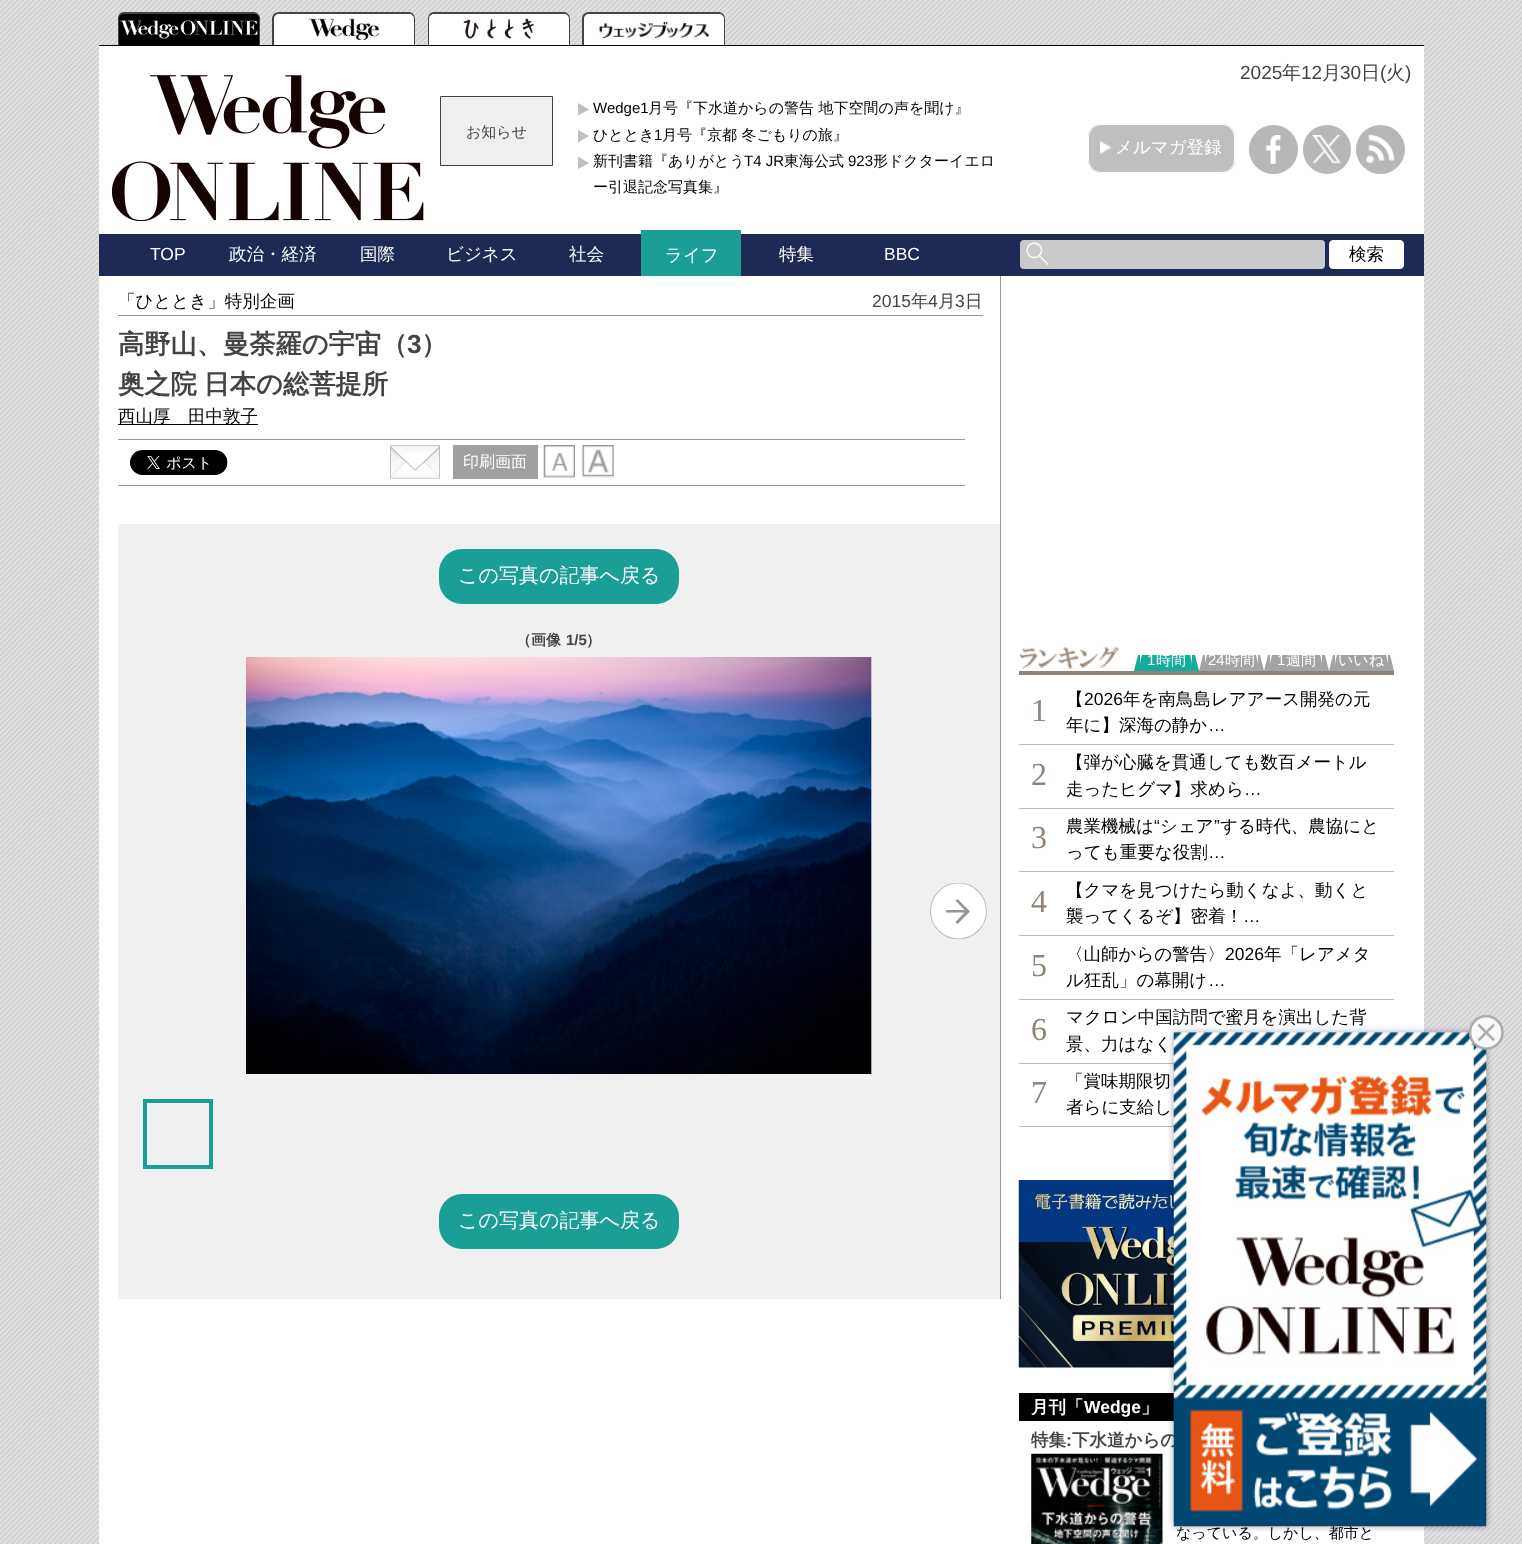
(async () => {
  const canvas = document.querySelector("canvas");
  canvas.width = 1522;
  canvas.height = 1544;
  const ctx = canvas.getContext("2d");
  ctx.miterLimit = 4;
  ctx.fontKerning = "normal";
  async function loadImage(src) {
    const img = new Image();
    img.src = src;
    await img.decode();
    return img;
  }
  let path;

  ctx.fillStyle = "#ffffff";
  ctx.fillRect(0, 0, 1522, 1544);
  ctx.drawImage(await loadImage("img/1.png"), 0, 0, 1522, 1544);
  ctx.fillStyle = "#000000";
  ctx.beginPath();
  ctx.roundRect(118, 13, 142, 32, [6, 6, 0, 0]);
  ctx.fill();
  ctx.drawImage(await loadImage("img/2.png"), 120, 20, 138, 19);
  ctx.fillStyle = "#444444";
  path = new Path2D("M124 12H254C257 12 260 15 260 19V45H118V19C118 15 120 12 124 12ZM124 14H254C257 14 259 16 259 19V45H119V19C119 16 121 14 124 14Z");
  ctx.fill(path, "evenodd");
  ctx.fillStyle = "#ffffff";
  ctx.beginPath();
  ctx.roundRect(273, 13, 142, 32, [6, 6, 0, 0]);
  ctx.fill();
  ctx.drawImage(await loadImage("img/3.png"), 308, 18, 71, 22);
  ctx.fillStyle = "#444444";
  path = new Path2D("M279 12H409C412 12 415 15 415 19V45H272V19C272 15 275 12 279 12ZM279 14H409C412 14 414 16 414 19V45H274V19C274 16 276 14 279 14Z");
  ctx.fill(path, "evenodd");
  ctx.fillStyle = "#ffffff";
  ctx.beginPath();
  ctx.roundRect(428, 13, 142, 32, [6, 6, 0, 0]);
  ctx.fill();
  ctx.drawImage(await loadImage("img/4.png"), 463, 18, 71, 21);
  ctx.fillStyle = "#444444";
  path = new Path2D("M434 12H564C567 12 570 15 570 19V45H428V19C428 15 430 12 434 12ZM434 14H564C567 14 569 16 569 19V45H429V19C429 16 431 14 434 14Z");
  ctx.fill(path, "evenodd");
  ctx.fillStyle = "#ffffff";
  ctx.beginPath();
  ctx.roundRect(583, 13, 142, 32, [6, 6, 0, 0]);
  ctx.fill();
  ctx.drawImage(await loadImage("img/5.png"), 598, 21, 111, 18);
  ctx.fillStyle = "#444444";
  path = new Path2D("M589 12H719C722 12 725 15 725 19V45H582V19C582 15 585 12 589 12ZM589 14H719C722 14 724 16 724 19V45H584V19C584 16 586 14 589 14Z");
  ctx.fill(path, "evenodd");
  ctx.fillStyle = "#ffffff";
  ctx.fillRect(99, 46, 1325, 188);
  ctx.fillStyle = "#000000";
  ctx.fillRect(99, 45, 1325, 1);
  ctx.drawImage(await loadImage("img/6.png"), 111, 75, 313, 146);
  ctx.fillStyle = "#eef0ef";
  ctx.beginPath();
  ctx.rect(440.5, 96.5, 112, 69);
  ctx.fill();
  ctx.strokeStyle = "#444444";
  ctx.stroke();
  ctx.fillStyle = "#bfbfbf";
  path = new Path2D("M578 103L589 109.5L578 115.5Z");
  ctx.fill(path);
  path = new Path2D("M578 130L589 136L578 142.5Z");
  ctx.fill(path);
  path = new Path2D("M578 169V156.5L589 163Z");
  ctx.fill(path);
  ctx.beginPath();
  ctx.roundRect(1088, 124, 147, 49, 13);
  ctx.fill();
  ctx.drawImage(await loadImage("img/7.png"), 1100, 141, 12, 13);
  ctx.beginPath();
  ctx.roundRect(1088.5, 124.5, 146, 48, 12.5);
  ctx.strokeStyle = "#ffffff";
  ctx.stroke();
  ctx.fillStyle = "#b7b7b7";
  ctx.beginPath();
  ctx.arc(1273.5, 149.5, 24.5, 0, Math.PI * 2);
  ctx.fill();
  ctx.drawImage(await loadImage("img/8.png"), 1266, 135, 16, 29);
  ctx.beginPath();
  ctx.roundRect(1303, 125, 48, 49, 24);
  ctx.fill();
  ctx.drawImage(await loadImage("img/9.png"), 1312, 135, 29, 29);
  ctx.beginPath();
  ctx.arc(1380.5, 149.5, 24.5, 0, Math.PI * 2);
  ctx.fill();
  ctx.drawImage(await loadImage("img/10.png"), 1366, 135, 29, 29);
  ctx.fillStyle = "#1e2a55";
  ctx.fillRect(99, 234, 1325, 42);
  ctx.fillStyle = "#1a9f97";
  ctx.fillRect(641, 230, 100, 46);
  ctx.fillStyle = "#c9c9cb";
  ctx.beginPath();
  ctx.roundRect(1020, 240, 305, 29, 4);
  ctx.fill();
  ctx.drawImage(await loadImage("img/11.png"), 1026, 242, 23, 23);
  ctx.fillStyle = "#ffffff";
  ctx.beginPath();
  ctx.roundRect(1329.5, 240.5, 74, 28, 3.5);
  ctx.fill();
  ctx.stroke();
  for (const [x, y, w, h, color] of [
    [99, 276, 1325, 1268, "#ffffff"],
    [1000, 276, 1, 1023, "#999999"],
    [118, 315, 865, 1, "#999999"],
    [118, 424, 140, 1, "#000000"],
    [118, 439, 847, 1, "#999999"],
    [118, 485, 847, 1, "#999999"],
  ]) {
    ctx.fillStyle = color;
    ctx.fillRect(x, y, w, h);
  }
  ctx.drawImage(await loadImage("img/12.png"), 130, 450, 98, 25);
  ctx.drawImage(await loadImage("img/13.png"), 390, 445, 50, 34);
  ctx.fillStyle = "#a0a0a0";
  ctx.fillRect(453, 445, 85, 34);
  ctx.drawImage(await loadImage("img/14.png"), 543, 445, 32, 33);
  ctx.drawImage(await loadImage("img/15.png"), 582, 445, 32, 33);
  ctx.fillStyle = "#f0f0f0";
  ctx.fillRect(118, 524, 882, 775);
  ctx.fillStyle = "#1a9f97";
  ctx.beginPath();
  ctx.roundRect(439, 549, 240, 55, 23);
  ctx.fill();
  ctx.drawImage(await loadImage("img/16.png"), 246, 657, 626, 417);
  ctx.save();
  ctx.beginPath();
  ctx.rect(930, 883, 58, 57);
  ctx.clip();
  ctx.fillStyle = "#ffffff";
  ctx.beginPath();
  ctx.arc(958.5, 911, 29, 0, Math.PI * 2);
  ctx.fill();
  ctx.beginPath();
  ctx.arc(958.5, 911, 28, 0, Math.PI * 2);
  ctx.strokeStyle = "#c3c3c3";
  ctx.lineWidth = 1.2;
  ctx.stroke();
  ctx.restore();
  ctx.fillStyle = "#969696";
  path = new Path2D("M957.5 899L955.5 900.5L964.5 910H946V912.5H964.5L955.5 922L957.5 924L970 911.5Z");
  ctx.fill(path);
  ctx.strokeStyle = "#1a9f97";
  ctx.lineWidth = 4;
  ctx.strokeRect(145, 1101, 66, 66);
  ctx.fillStyle = "#1a9f97";
  ctx.beginPath();
  ctx.roundRect(439, 1194, 240, 55, 23);
  ctx.fill();
  ctx.drawImage(await loadImage("img/17.png"), 1019, 646, 100, 23);
  ctx.fillStyle = "#14ad9b";
  path = new Path2D("M1199 671H1134L1138 655H1140V666C1140 662 1141 658 1142 655H1190C1191 658 1192 662 1192 666V655H1195Z");
  ctx.fill(path);
  ctx.fillStyle = "#a3a3a3";
  path = new Path2D("M1264 671H1199L1203 655H1205V666C1205 662 1206 658 1207 655H1256C1257 658 1258 662 1258 666V655H1260Z");
  ctx.fill(path);
  path = new Path2D("M1329 671H1264L1268 655H1270V666C1270 662 1271 658 1272 655H1320C1321 658 1322 662 1322 666V655H1325Z");
  ctx.fill(path);
  path = new Path2D("M1394 671H1329L1333 655H1335V666C1335 662 1336 658 1337 655H1386C1387 658 1388 662 1388 666V655H1390Z");
  ctx.fill(path);
  for (const [x, y, w, h, color] of [
    [1019, 671, 375, 4, "#8d837a"],
    [1019, 744, 375, 1, "#c5bbb0"],
    [1019, 808, 375, 1, "#c5bbb0"],
    [1019, 871, 375, 1, "#c5bbb0"],
    [1019, 935, 375, 1, "#c5bbb0"],
    [1019, 999, 375, 1, "#c5bbb0"],
    [1019, 1063, 155, 1, "#c5bbb0"],
    [1019, 1126, 155, 1, "#c5bbb0"],
  ]) {
    ctx.fillStyle = color;
    ctx.fillRect(x, y, w, h);
  }
  ctx.drawImage(await loadImage("img/18.png"), 1018, 1180, 156, 188);
  ctx.fillStyle = "#000000";
  ctx.fillRect(1019, 1393, 155, 28);
  ctx.drawImage(await loadImage("img/19.png"), 1031, 1453, 132, 91);
  ctx.font = "19px Liberation Sans";
  ctx.fillStyle = "#444444";
  ctx.fillText("2025", 1240, 79);
  ctx.font = "500 19px WenQuanYi Zen Hei";
  ctx.fillText("年", 1282, 79);
  ctx.font = "19px Liberation Sans";
  ctx.fillText("12", 1301, 79);
  ctx.font = "500 19px WenQuanYi Zen Hei";
  ctx.fillText("月", 1322, 79);
  ctx.font = "19px Liberation Sans";
  ctx.fillText("30", 1340, 79);
  ctx.font = "500 19px WenQuanYi Zen Hei";
  ctx.fillText("日", 1361, 79);
  ctx.font = "19px Liberation Sans";
  ctx.fillText("(", 1380, 79);
  ctx.font = "500 19px WenQuanYi Zen Hei";
  ctx.fillText("火", 1386, 79);
  ctx.font = "19px Liberation Sans";
  ctx.fillText(")", 1405, 79);
  ctx.font = "500 15px WenQuanYi Zen Hei";
  ctx.fillText("お知らせ", 466, 137);
  ctx.font = "15px Liberation Sans";
  ctx.fillStyle = "#000000";
  ctx.fillText("Wedge1", 593, 113);
  ctx.font = "500 15px WenQuanYi Zen Hei";
  ctx.fillText("月号『下水道からの警告 地下空間の声を聞け』", 648, 113);
  ctx.fillText("ひととき", 593, 140);
  ctx.font = "15px Liberation Sans";
  ctx.fillText("1", 654, 140);
  ctx.font = "500 15px WenQuanYi Zen Hei";
  ctx.fillText("月号『京都 冬ごもりの旅』", 662, 140);
  ctx.fillText("新刊書籍『ありがとう", 593, 166);
  ctx.font = "15px Liberation Sans";
  ctx.fillText("T4 JR", 744, 166);
  ctx.font = "500 15px WenQuanYi Zen Hei";
  ctx.fillText("東海公式", 784, 166);
  ctx.font = "15px Liberation Sans";
  ctx.fillText("923", 848, 166);
  ctx.font = "500 15px WenQuanYi Zen Hei";
  ctx.fillText("形ドクターイエロ", 873, 166);
  ctx.fillText("ー引退記念写真集』", 593, 192);
  ctx.font = "500 17.5px WenQuanYi Zen Hei";
  ctx.fillStyle = "#ffffff";
  ctx.fillText("メルマガ登録", 1115, 153);
  ctx.font = "17.5px Liberation Sans";
  ctx.fillText("TOP", 150, 260);
  ctx.font = "500 17.5px WenQuanYi Zen Hei";
  for (const [text, x, y] of [
    ["政治・経済", 229, 260],
    ["国際", 360, 260],
    ["ビジネス", 446, 260],
    ["社会", 569, 260],
    ["ライフ", 665, 261],
    ["特集", 779, 260],
  ]) {
    ctx.fillText(text, x, y);
  }
  ctx.font = "17.5px Liberation Sans";
  ctx.fillText("BBC", 884, 260);
  ctx.font = "500 17.5px WenQuanYi Zen Hei";
  ctx.fillStyle = "#000000";
  ctx.fillText("検索", 1349, 260);
  ctx.fillText("「ひととき」特別企画", 118, 307);
  ctx.font = "17.5px Liberation Sans";
  ctx.fillStyle = "#444444";
  ctx.fillText("2015", 872, 307);
  ctx.font = "500 17.5px WenQuanYi Zen Hei";
  ctx.fillText("年", 911, 307);
  ctx.font = "17.5px Liberation Sans";
  ctx.fillText("4", 928, 307);
  ctx.font = "500 17.5px WenQuanYi Zen Hei";
  ctx.fillText("月", 938, 307);
  ctx.font = "17.5px Liberation Sans";
  ctx.fillText("3", 955, 307);
  ctx.font = "500 17.5px WenQuanYi Zen Hei";
  ctx.fillText("日", 965, 307);
  ctx.font = "bold 26.25px WenQuanYi Zen Hei";
  ctx.fillText("高野山、曼荼羅の宇宙（", 118, 353);
  ctx.font = "bold 26.25px Liberation Sans";
  ctx.fillText("3", 407, 353);
  ctx.font = "bold 26.25px WenQuanYi Zen Hei";
  ctx.fillText("）", 421, 353);
  ctx.wordSpacing = "-1px";
  ctx.fillText("奥之院 日本の総菩提所", 118, 393);
  ctx.wordSpacing = "0px";
  ctx.font = "500 17.5px WenQuanYi Zen Hei";
  ctx.fillStyle = "#000000";
  ctx.fillText("西山厚　田中敦子", 118, 422);
  ctx.font = "500 16px WenQuanYi Zen Hei";
  ctx.fillStyle = "#ffffff";
  ctx.fillText("印刷画面", 463, 467);
  ctx.font = "500 20px WenQuanYi Zen Hei";
  ctx.fillText("この写真の記事へ戻る", 458, 582);
  ctx.font = "bold 15px WenQuanYi Zen Hei";
  ctx.fillStyle = "#444444";
  ctx.fillText("（画像", 516, 645);
  ctx.font = "bold 15px Liberation Sans";
  ctx.fillText("1/5", 566, 645);
  ctx.font = "bold 15px WenQuanYi Zen Hei";
  ctx.fillText("）", 586, 645);
  ctx.font = "500 20px WenQuanYi Zen Hei";
  ctx.fillStyle = "#ffffff";
  ctx.fillText("この写真の記事へ戻る", 458, 1227);
  ctx.font = "15px Liberation Sans";
  ctx.fillText("1", 1147, 665);
  ctx.font = "500 15px WenQuanYi Zen Hei";
  ctx.fillText("時間", 1156, 665);
  ctx.font = "15px Liberation Sans";
  ctx.fillText("24", 1208, 665);
  ctx.font = "500 15px WenQuanYi Zen Hei";
  ctx.fillText("時間", 1225, 665);
  ctx.font = "15px Liberation Sans";
  ctx.fillText("1", 1277, 665);
  ctx.font = "500 15px WenQuanYi Zen Hei";
  ctx.fillText("週間", 1286, 665);
  ctx.fillText("いいね", 1338, 665);
  ctx.font = "32px Liberation Serif";
  ctx.fillStyle = "#8e8478";
  ctx.fillText("1", 1031, 721);
  ctx.font = "500 17.5px WenQuanYi Zen Hei";
  ctx.fillStyle = "#000000";
  ctx.fillText("【", 1066, 705);
  ctx.font = "17.5px Liberation Sans";
  ctx.fillText("2026", 1084, 705);
  ctx.font = "500 17.5px WenQuanYi Zen Hei";
  ctx.fillText("年を南鳥島レアアース開発の元", 1123, 705);
  ctx.fillText("年に】深海の静か", 1066, 731);
  ctx.font = "17.5px Liberation Sans";
  ctx.fillText("…", 1208, 731);
  ctx.font = "32px Liberation Serif";
  ctx.fillStyle = "#8e8478";
  ctx.fillText("2", 1031, 785);
  ctx.font = "500 17.5px WenQuanYi Zen Hei";
  ctx.fillStyle = "#000000";
  ctx.fillText("【弾が心臓を貫通しても数百メートル", 1066, 768);
  ctx.fillText("走ったヒグマ】求めら", 1066, 795);
  ctx.font = "17.5px Liberation Sans";
  ctx.fillText("…", 1244, 795);
  ctx.font = "32px Liberation Serif";
  ctx.fillStyle = "#8e8478";
  ctx.fillText("3", 1031, 848);
  ctx.font = "500 17.5px WenQuanYi Zen Hei";
  ctx.fillStyle = "#000000";
  ctx.fillText("農業機械は", 1066, 832);
  ctx.font = "17.5px Liberation Sans";
  ctx.fillText("“", 1154, 832);
  ctx.font = "500 17.5px WenQuanYi Zen Hei";
  ctx.fillText("シェア", 1160, 832);
  ctx.font = "17.5px Liberation Sans";
  ctx.fillText("”", 1214, 832);
  ctx.font = "500 17.5px WenQuanYi Zen Hei";
  ctx.fillText("する時代、農協にと", 1220, 832);
  ctx.fillText("っても重要な役割", 1066, 858);
  ctx.font = "17.5px Liberation Sans";
  ctx.fillText("…", 1208, 858);
  ctx.font = "32px Liberation Serif";
  ctx.fillStyle = "#8e8478";
  ctx.fillText("4", 1031, 912);
  ctx.font = "500 17.5px WenQuanYi Zen Hei";
  ctx.fillStyle = "#000000";
  ctx.fillText("【クマを見つけたら動くなよ、動くと", 1066, 896);
  ctx.fillText("襲ってくるぞ】密着！", 1066, 922);
  ctx.font = "17.5px Liberation Sans";
  ctx.fillText("…", 1243, 922);
  ctx.font = "32px Liberation Serif";
  ctx.fillStyle = "#8e8478";
  ctx.fillText("5", 1031, 976);
  ctx.font = "500 17.5px WenQuanYi Zen Hei";
  ctx.fillStyle = "#000000";
  ctx.fillText("〈山師からの警告〉", 1066, 960);
  ctx.font = "17.5px Liberation Sans";
  ctx.fillText("2026", 1225, 960);
  ctx.font = "500 17.5px WenQuanYi Zen Hei";
  ctx.fillText("年「レアメタ", 1264, 960);
  ctx.fillText("ル狂乱」の幕開け", 1066, 986);
  ctx.font = "17.5px Liberation Sans";
  ctx.fillText("…", 1208, 986);
  ctx.font = "32px Liberation Serif";
  ctx.fillStyle = "#8e8478";
  ctx.fillText("6", 1031, 1040);
  ctx.font = "500 17.5px WenQuanYi Zen Hei";
  ctx.fillStyle = "#000000";
  ctx.fillText("マクロン中国訪問で蜜月を演出した背", 1066, 1023);
  ctx.fillText("景、力はなく", 1066, 1050);
  ctx.font = "32px Liberation Serif";
  ctx.fillStyle = "#8e8478";
  ctx.fillText("7", 1031, 1103);
  ctx.font = "500 17.5px WenQuanYi Zen Hei";
  ctx.fillStyle = "#000000";
  ctx.fillText("「賞味期限切", 1066, 1087);
  ctx.fillText("者らに支給し", 1066, 1113);
  ctx.font = "bold 17.5px WenQuanYi Zen Hei";
  ctx.fillStyle = "#ffffff";
  ctx.fillText("月刊「", 1031, 1413);
  ctx.font = "bold 17.5px Liberation Sans";
  ctx.fillText("Wedge", 1084, 1413);
  ctx.font = "bold 17.5px WenQuanYi Zen Hei";
  ctx.fillText("」", 1141, 1413);
  ctx.fillStyle = "#444444";
  ctx.fillText("特集", 1031, 1446);
  ctx.font = "bold 17.5px Liberation Sans";
  ctx.fillText(":", 1066, 1446);
  ctx.font = "bold 17.5px WenQuanYi Zen Hei";
  ctx.fillText("下水道からの", 1072, 1446);
  ctx.font = "500 15px WenQuanYi Zen Hei";
  ctx.fillStyle = "#000000";
  ctx.fillText("なっている。しかし、都市と", 1176, 1538);
  ctx.drawImage(await loadImage("img/20.png"), 1168, 1014, 336, 518);
})();
